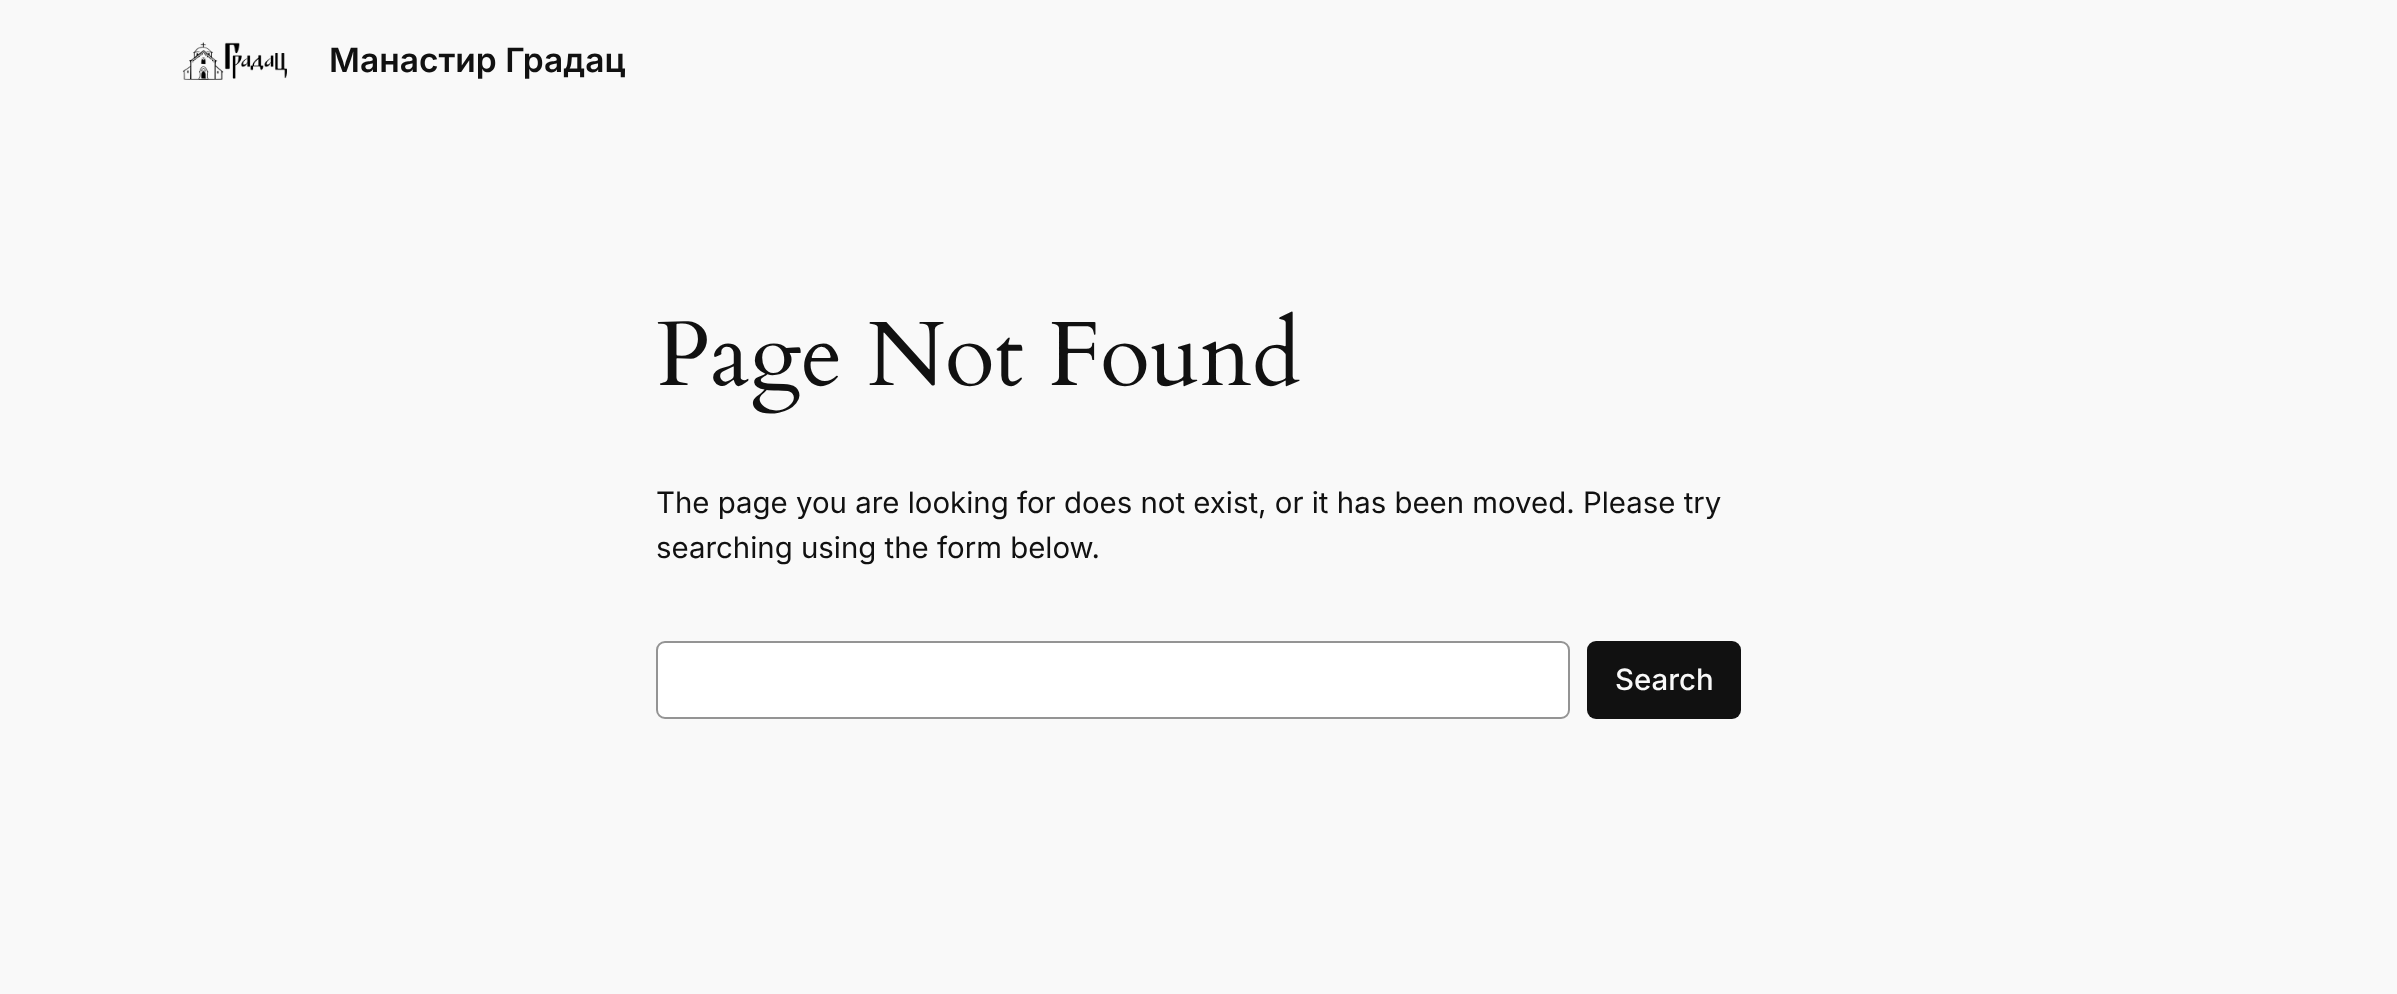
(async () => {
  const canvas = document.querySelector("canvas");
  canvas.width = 2397;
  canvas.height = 994;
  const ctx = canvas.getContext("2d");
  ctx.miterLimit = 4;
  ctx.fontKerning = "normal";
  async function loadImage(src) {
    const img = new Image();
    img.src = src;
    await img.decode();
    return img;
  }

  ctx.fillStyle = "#f9f9f9";
  ctx.fillRect(0, 0, 2397, 994);
  ctx.drawImage(await loadImage("img/1.png"), 182, 42, 105, 38);
  ctx.fillStyle = "#ffffff";
  ctx.beginPath();
  ctx.roundRect(657, 642, 912, 76, 8);
  ctx.fill();
  ctx.strokeStyle = "#949494";
  ctx.lineWidth = 2;
  ctx.stroke();
  ctx.fillStyle = "#111111";
  ctx.beginPath();
  ctx.roundRect(1587, 641, 154, 78, 9);
  ctx.fill();
  ctx.font = "600 33.5px Inter";
  ctx.fillText("Манастир Градац", 329, 72);
  ctx.font = "91.5px Cardo";
  ctx.fillText("Page Not Found", 656, 385);
  ctx.font = "29.4px Inter";
  ctx.fillText("The page you are looking for does not exist, or it has been moved. Please try", 656, 513);
  ctx.fillText("searching using the form below.", 656, 558);
  ctx.font = "500 29.4px Inter";
  ctx.fillStyle = "#f9f9f9";
  ctx.fillText("Search", 1615, 690);
})();
